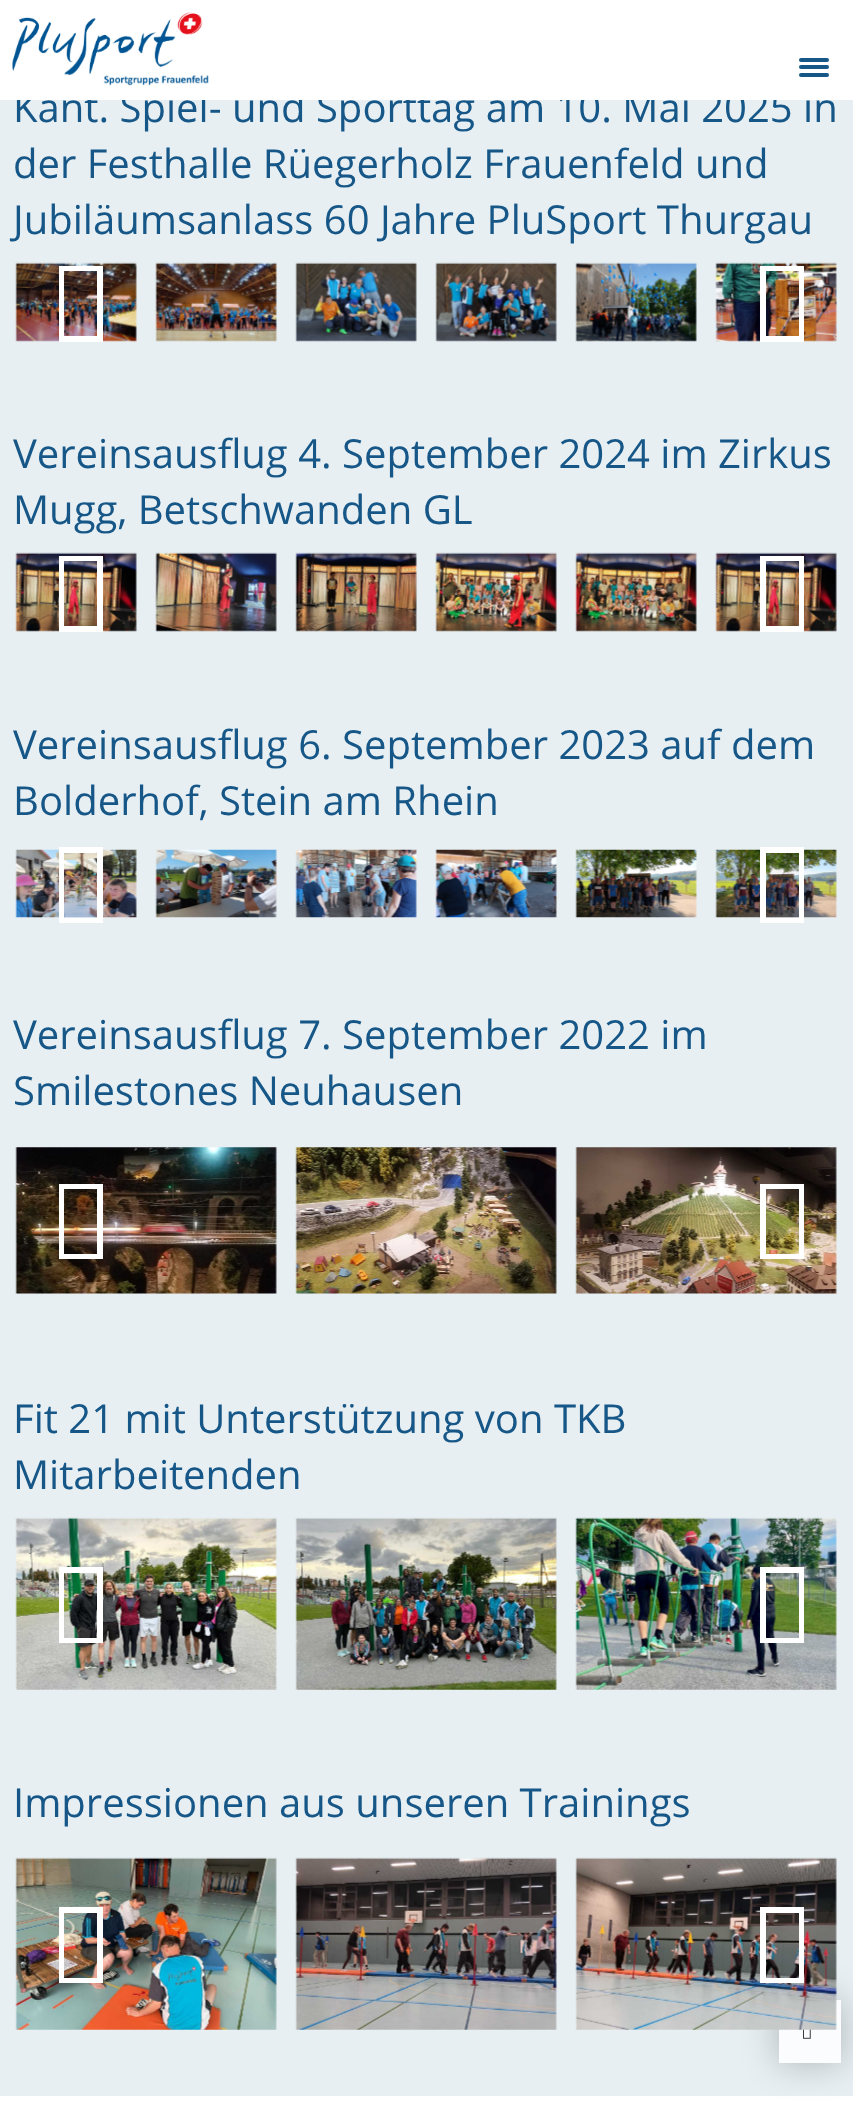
(async () => {
  const canvas = document.querySelector("canvas");
  canvas.width = 853;
  canvas.height = 2124;
  const ctx = canvas.getContext("2d");
  ctx.miterLimit = 4;
  ctx.fontKerning = "normal";
  async function loadImage(src) {
    const img = new Image();
    img.src = src;
    await img.decode();
    return img;
  }
  let path;

  ctx.fillStyle = "#ffffff";
  ctx.fillRect(0, 0, 853, 2124);
  ctx.drawImage(await loadImage("img/1.png"), 12, 12, 197, 74);
  ctx.fillStyle = "#165788";
  ctx.beginPath();
  ctx.roundRect(799, 58, 30, 4, 2);
  ctx.fill();
  ctx.beginPath();
  ctx.roundRect(799, 65, 30, 4, 2);
  ctx.fill();
  ctx.beginPath();
  ctx.roundRect(799, 73, 30, 4, 2);
  ctx.fill();
  ctx.fillStyle = "#e7eff3";
  ctx.fillRect(0, 100, 853, 1996);
  ctx.drawImage(await loadImage("img/2.png"), 15, 262, 122, 80);
  ctx.drawImage(await loadImage("img/3.png"), 155, 262, 122, 80);
  ctx.drawImage(await loadImage("img/4.png"), 295, 262, 122, 80);
  ctx.drawImage(await loadImage("img/5.png"), 435, 262, 122, 80);
  ctx.drawImage(await loadImage("img/6.png"), 575, 262, 122, 80);
  ctx.drawImage(await loadImage("img/7.png"), 715, 262, 122, 80);
  ctx.fillStyle = "#ffffff";
  path = new Path2D("M59 342V266H103V342ZM64 336H97V271H64Z");
  ctx.fill(path);
  path = new Path2D("M760 342V266H804V342ZM766 336H799V271H766Z");
  ctx.fill(path);
  ctx.drawImage(await loadImage("img/8.png"), 15, 552, 122, 80);
  ctx.drawImage(await loadImage("img/9.png"), 155, 552, 122, 80);
  ctx.drawImage(await loadImage("img/10.png"), 295, 552, 122, 80);
  ctx.drawImage(await loadImage("img/11.png"), 435, 552, 122, 80);
  ctx.drawImage(await loadImage("img/12.png"), 575, 552, 122, 80);
  ctx.drawImage(await loadImage("img/8.png"), 715, 552, 122, 80);
  path = new Path2D("M59 632V556H103V632ZM64 626H97V561H64Z");
  ctx.fill(path);
  path = new Path2D("M760 632V556H804V632ZM766 626H799V561H766Z");
  ctx.fill(path);
  ctx.drawImage(await loadImage("img/13.png"), 15, 849, 122, 69);
  path = new Path2D("M59 923V847H103V923ZM64 918H97V853H64Z");
  ctx.fill(path);
  ctx.drawImage(await loadImage("img/18.png"), 715, 849, 122, 69);
  path = new Path2D("M760 923V847H804V923ZM766 918H799V853H766Z");
  ctx.fill(path);
  ctx.drawImage(await loadImage("img/14.png"), 155, 849, 122, 69);
  ctx.drawImage(await loadImage("img/15.png"), 295, 849, 122, 69);
  ctx.drawImage(await loadImage("img/16.png"), 435, 849, 122, 69);
  ctx.drawImage(await loadImage("img/17.png"), 575, 849, 122, 69);
  ctx.drawImage(await loadImage("img/19.png"), 15, 1147, 262, 147);
  ctx.drawImage(await loadImage("img/20.png"), 295, 1147, 262, 147);
  ctx.drawImage(await loadImage("img/21.png"), 575, 1147, 262, 147);
  path = new Path2D("M59 1259V1184H103V1259ZM64 1254H97V1189H64Z");
  ctx.fill(path);
  path = new Path2D("M760 1259V1184H804V1259ZM766 1254H799V1189H766Z");
  ctx.fill(path);
  ctx.drawImage(await loadImage("img/22.png"), 15, 1517, 262, 173);
  ctx.drawImage(await loadImage("img/23.png"), 295, 1517, 262, 173);
  ctx.drawImage(await loadImage("img/24.png"), 575, 1517, 262, 173);
  path = new Path2D("M59 1643V1567H103V1643ZM64 1638H97V1573H64Z");
  ctx.fill(path);
  path = new Path2D("M760 1643V1567H804V1643ZM766 1638H799V1573H766Z");
  ctx.fill(path);
  ctx.drawImage(await loadImage("img/25.png"), 15, 1857, 262, 173);
  ctx.drawImage(await loadImage("img/26.png"), 295, 1857, 262, 173);
  ctx.save();
  path = new Path2D("M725 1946H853V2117H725ZM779 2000H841V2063H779Z");
  ctx.clip(path, "evenodd");
  ctx.fillStyle = "rgba(0, 0, 0, 0.25)";
  ctx.filter = "blur(17.5px)";
  ctx.beginPath();
  ctx.rect(779, 2000, 62, 63);
  ctx.fill();
  ctx.filter = "none";
  ctx.restore();
  ctx.fillStyle = "rgba(255, 255, 255, 0.8)";
  ctx.fillRect(779, 2000, 62, 63);
  ctx.drawImage(await loadImage("img/28.png"), 803, 2029, 8, 10);
  ctx.drawImage(await loadImage("img/27.png"), 575, 1857, 262, 173);
  ctx.fillStyle = "#ffffff";
  path = new Path2D("M59 1983V1907H103V1983ZM64 1978H97V1913H64Z");
  ctx.fill(path);
  path = new Path2D("M760 1983V1907H804V1983ZM766 1978H799V1913H766Z");
  ctx.fill(path);
  ctx.font = "40px Open Sans";
  ctx.fillStyle = "#165788";
  ctx.fillText("Kant. Spiel- und Sporttag am 10. Mai 2025 in", 13, 122);
  ctx.fillStyle = "#ffffff";
  ctx.fillRect(16, 91, 794, 9);
  ctx.fillStyle = "#165788";
  for (const [text, x, y] of [
    ["der Festhalle Rüegerholz Frauenfeld und", 13, 178],
    ["Jubiläumsanlass 60 Jahre PluSport Thurgau", 13, 234],
    ["Vereinsausflug 4. September 2024 im Zirkus", 13, 468],
    ["Mugg, Betschwanden GL", 13, 524],
    ["Vereinsausflug 6. September 2023 auf dem", 13, 759],
    ["Bolderhof, Stein am Rhein", 13, 815],
    ["Vereinsausflug 7. September 2022 im", 13, 1049],
    ["Smilestones Neuhausen", 13, 1105],
    ["Fit 21 mit Unterstützung von TKB", 13, 1433],
    ["Mitarbeitenden", 13, 1489],
    ["Impressionen aus unseren Trainings", 13, 1817],
  ]) {
    ctx.fillText(text, x, y);
  }
})();
